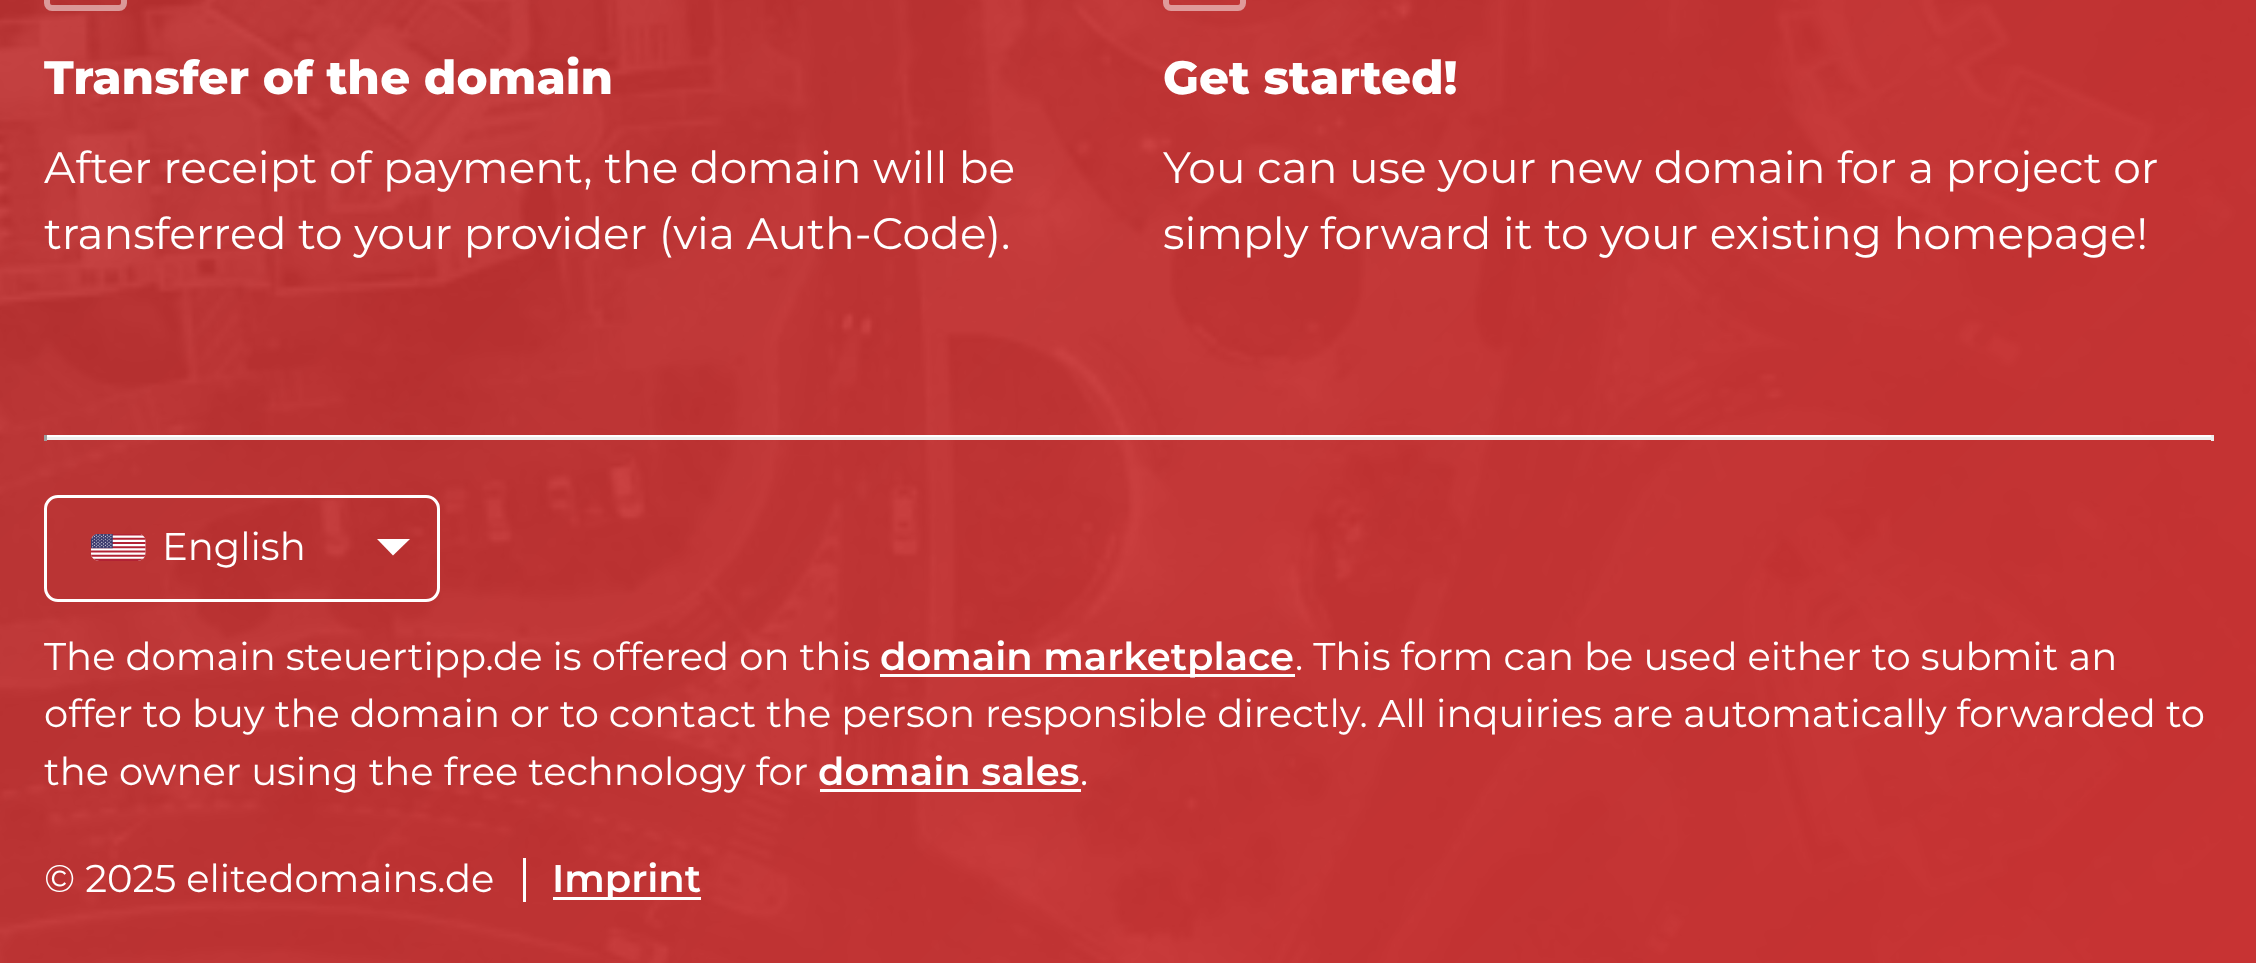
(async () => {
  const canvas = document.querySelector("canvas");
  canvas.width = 2256;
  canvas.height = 963;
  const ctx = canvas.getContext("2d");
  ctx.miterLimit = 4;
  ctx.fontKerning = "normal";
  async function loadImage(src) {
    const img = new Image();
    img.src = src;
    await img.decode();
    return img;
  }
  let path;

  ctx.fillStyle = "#ffffff";
  ctx.fillRect(0, 0, 2256, 963);
  ctx.drawImage(await loadImage("img/1.png"), 0, 0, 2256, 963);
  ctx.beginPath();
  ctx.roundRect(47, -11, 77, 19, 5);
  ctx.strokeStyle = "rgba(255, 255, 255, 0.5)";
  ctx.lineWidth = 6;
  ctx.stroke();
  ctx.beginPath();
  ctx.roundRect(1166, -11, 77, 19, 5);
  ctx.strokeStyle = "#df9a9a";
  ctx.stroke();
  for (const [x, y, w, h, color] of [
    [44, 435, 2170, 2, "#ffffff"],
    [2211, 435, 3, 6, "#eeeeee"],
    [44, 437, 2170, 3, "#eeeeee"],
    [44, 435, 3, 6, "#9f9f9f"],
  ]) {
    ctx.fillStyle = color;
    ctx.fillRect(x, y, w, h);
  }
  ctx.beginPath();
  ctx.roundRect(45.5, 496.5, 393, 104, 12.5);
  ctx.strokeStyle = "#ffffff";
  ctx.lineWidth = 3;
  ctx.stroke();
  ctx.drawImage(await loadImage("img/2.png"), 91, 534, 55, 27);
  ctx.fillStyle = "#ffffff";
  path = new Path2D("M377 539H410L393 555.5Z");
  ctx.fill(path);
  for (const [x, y, w, h, color] of [
    [880, 674, 415, 3, "#ffffff"],
    [820, 789, 261, 3, "#ffffff"],
    [523, 858, 3, 44, "#ffffff"],
    [553, 897, 148, 3, "#ffffff"],
  ]) {
    ctx.fillStyle = color;
    ctx.fillRect(x, y, w, h);
  }
  ctx.font = "800 46.75px Montserrat";
  ctx.fillText("Transfer of the domain", 44, 94);
  ctx.font = "44px Montserrat";
  ctx.fillText("After receipt of payment, the domain will be", 44, 183);
  ctx.fillText("transferred to your provider (via Auth-Code).", 44, 249);
  ctx.font = "800 46.75px Montserrat";
  ctx.fillText("Get started!", 1163, 94);
  ctx.font = "44px Montserrat";
  ctx.fillText("You can use your new domain for a project or", 1163, 183);
  ctx.fillText("simply forward it to your existing homepage!", 1163, 249);
  ctx.font = "38.5px Montserrat";
  ctx.fillText("English", 162, 560);
  ctx.fillText("The domain steuertipp.de is offered on this", 44, 670);
  ctx.font = "600 38.5px Montserrat";
  ctx.fillText("domain marketplace", 880, 670);
  ctx.font = "38.5px Montserrat";
  for (const [text, x, y] of [
    [". This form can be used either to submit an", 1295, 670],
    ["offer to buy the domain or to contact the person responsible directly. All inquiries are automatically forwarded to", 44, 727],
    ["the owner using the free technology for", 44, 785],
  ]) {
    ctx.fillText(text, x, y);
  }
  ctx.font = "600 38.5px Montserrat";
  ctx.fillText("domain sales", 818, 785);
  ctx.font = "38.5px Montserrat";
  ctx.fillText(".", 1080, 785);
  ctx.fillText("© 2025 elitedomains.de", 44, 892);
  ctx.font = "600 38.5px Montserrat";
  ctx.fillText("Imprint", 552, 892);
})();
